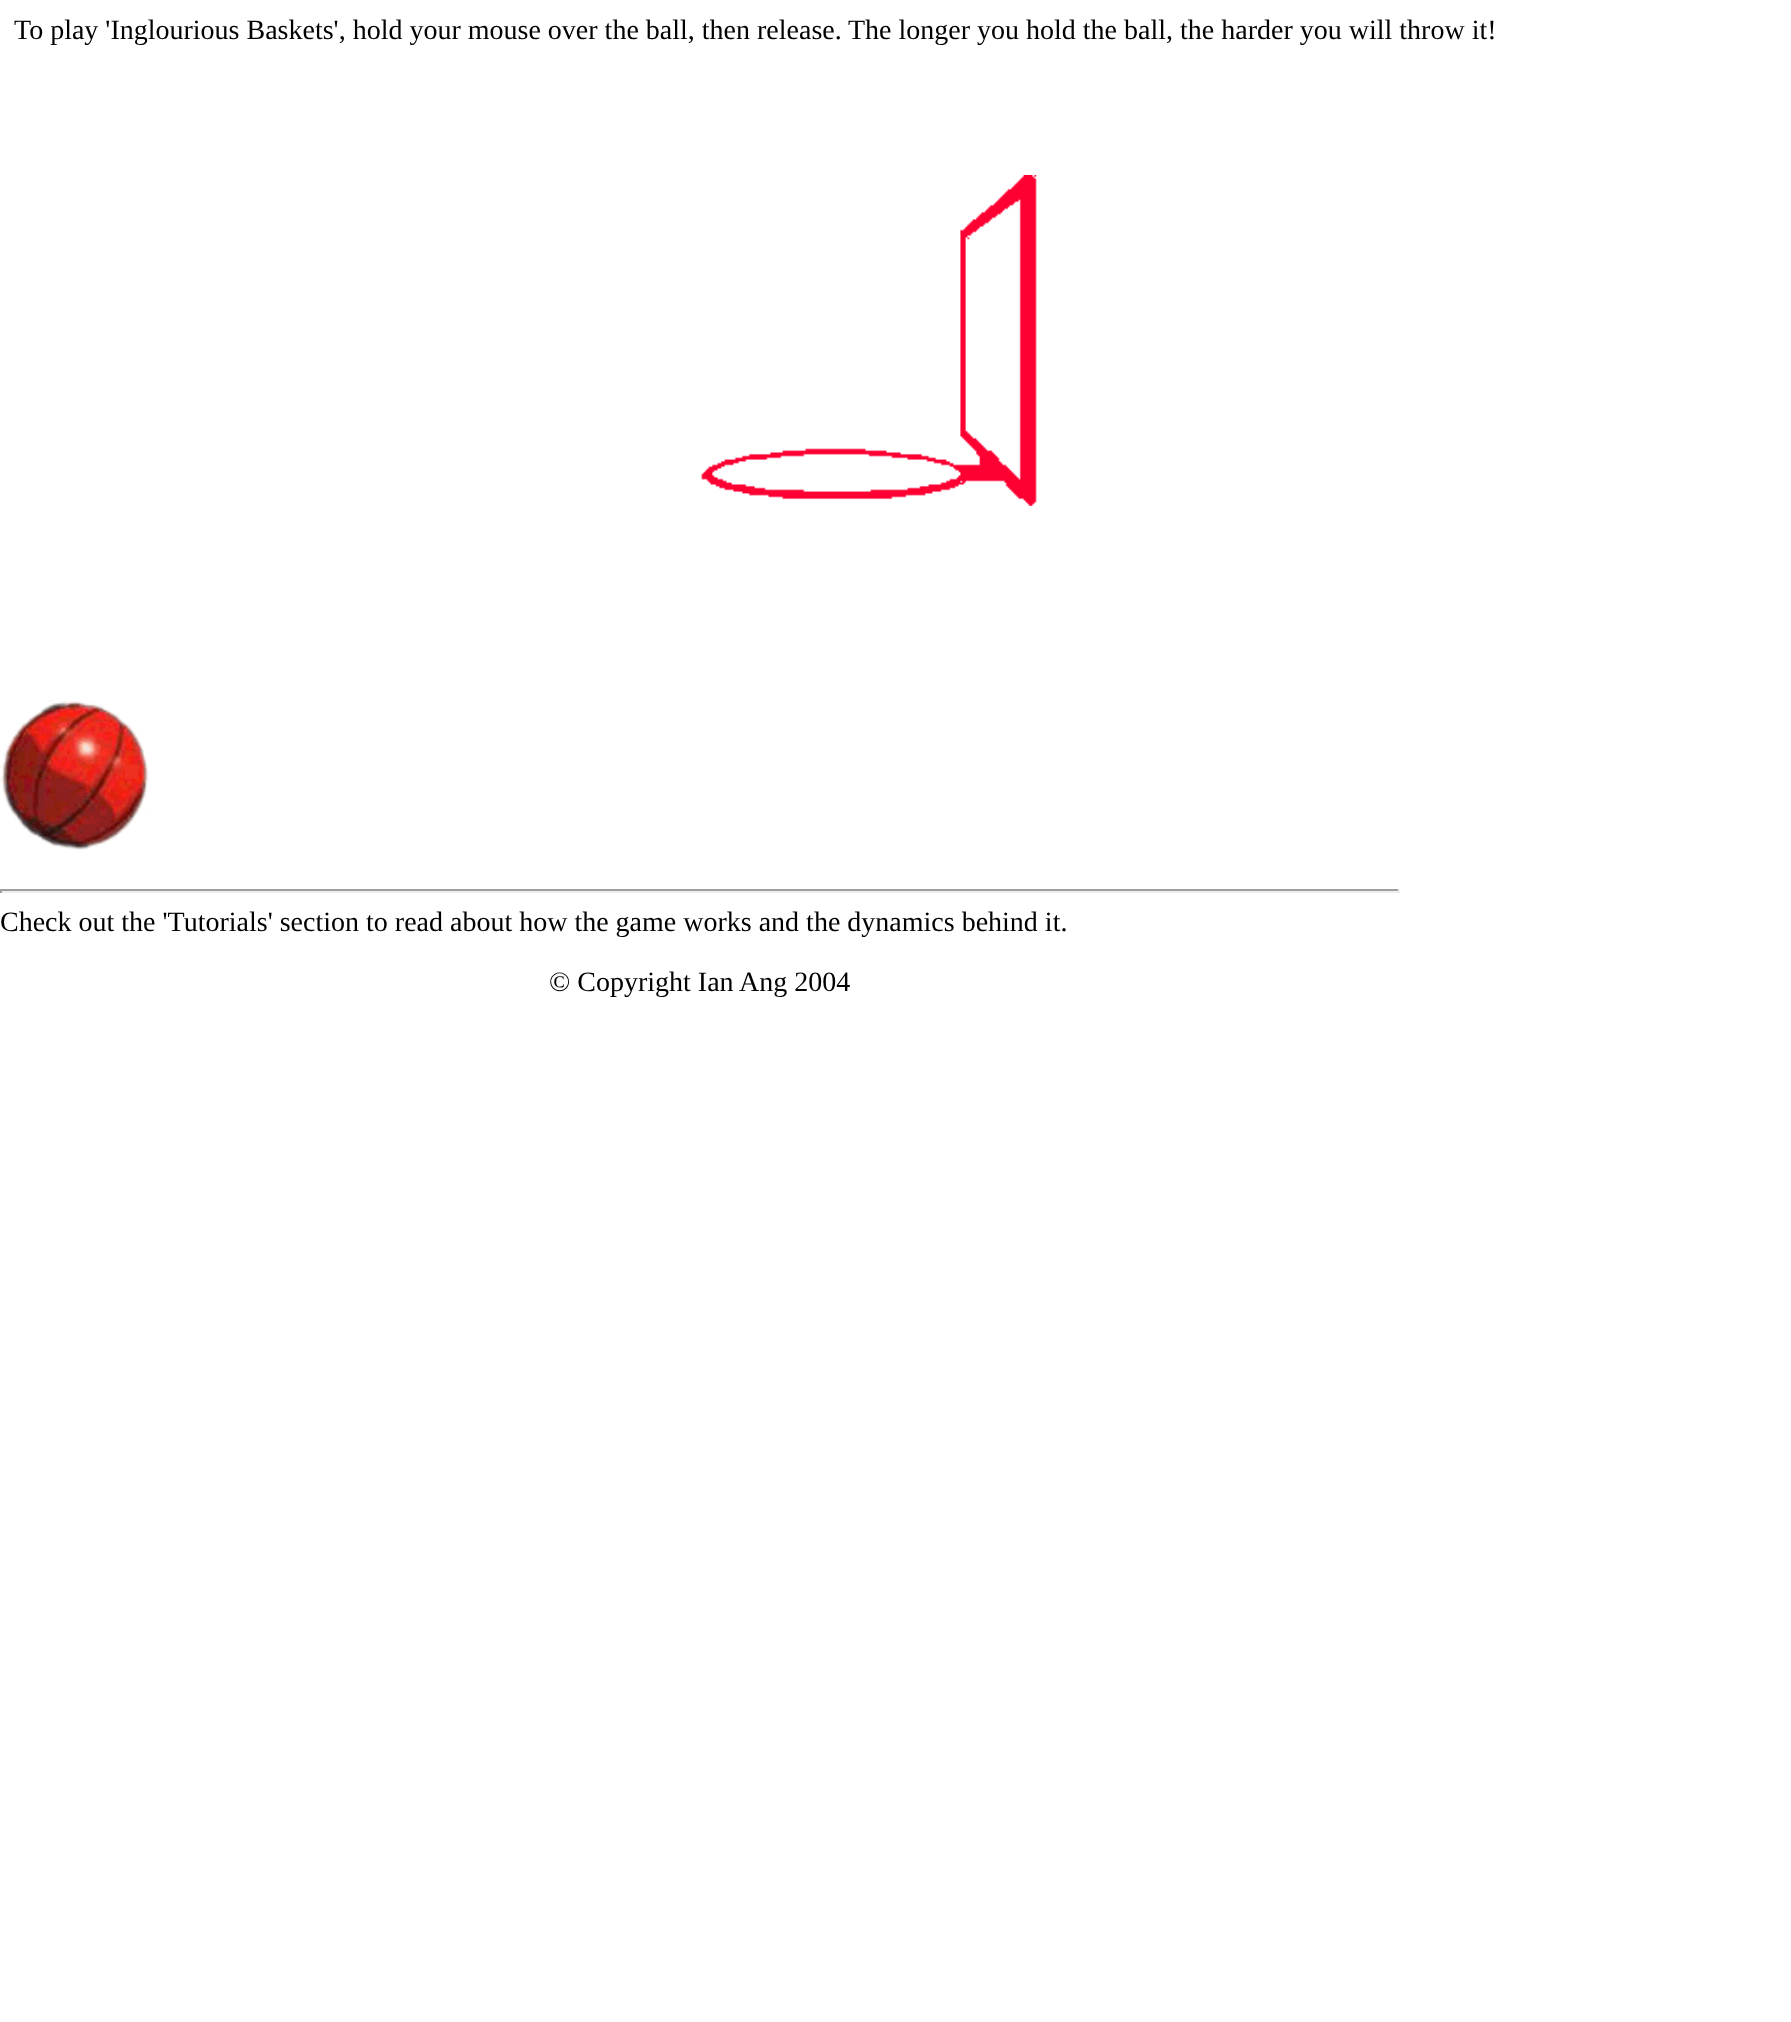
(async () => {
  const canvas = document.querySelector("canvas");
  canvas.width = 1791;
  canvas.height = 2022;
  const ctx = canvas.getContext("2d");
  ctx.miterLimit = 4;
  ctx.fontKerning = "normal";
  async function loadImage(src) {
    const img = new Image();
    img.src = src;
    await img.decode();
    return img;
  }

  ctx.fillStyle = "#ffffff";
  ctx.fillRect(0, 0, 1791, 2022);
  ctx.drawImage(await loadImage("img/1.png"), 701, 175, 336, 331);
  ctx.drawImage(await loadImage("img/2.png"), 0, 700, 151, 150);
  for (const [x, y, w, h, color] of [
    [0, 889, 1400, 2, "#9f9f9f"],
    [1398, 889, 2, 4, "#eeeeee"],
    [0, 891, 1400, 2, "#eeeeee"],
    [0, 889, 2, 4, "#9f9f9f"],
  ]) {
    ctx.fillStyle = color;
    ctx.fillRect(x, y, w, h);
  }
  ctx.font = "28px Liberation Serif";
  ctx.fillStyle = "#000000";
  for (const [text, x, y] of [
    ["To play 'Inglourious Baskets', hold your mouse over the ball, then release.", 14, 39],
    ["The longer you hold the ball, the harder you will throw it!", 848, 39],
    ["Check out the 'Tutorials' section to read about how the game works and the dynamics behind it.", 0, 931],
    ["© Copyright Ian Ang 2004", 549, 991],
  ]) {
    ctx.fillText(text, x, y);
  }
})();
